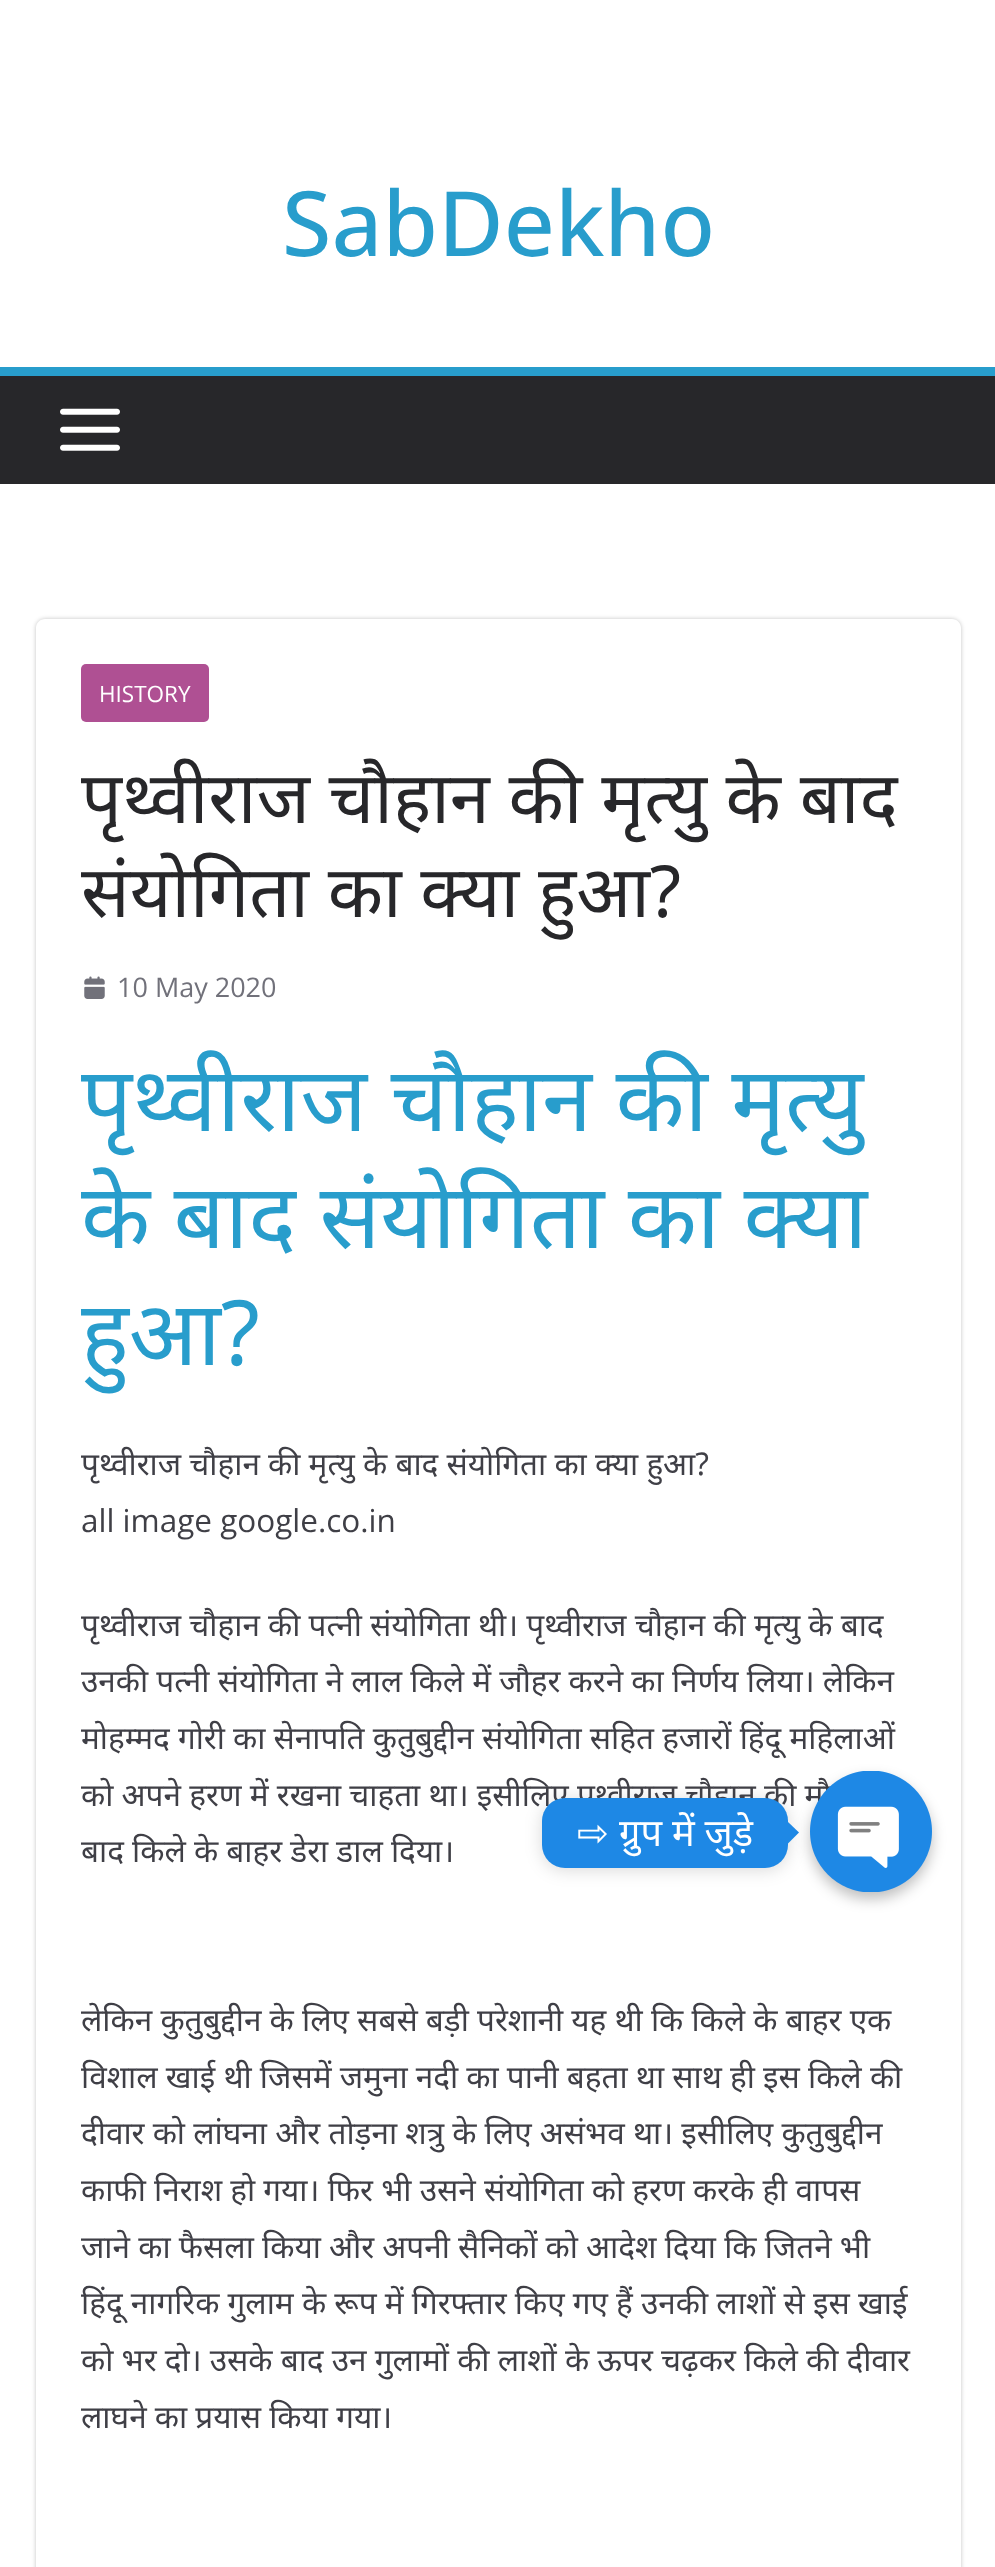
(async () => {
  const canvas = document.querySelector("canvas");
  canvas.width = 995;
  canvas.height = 2567;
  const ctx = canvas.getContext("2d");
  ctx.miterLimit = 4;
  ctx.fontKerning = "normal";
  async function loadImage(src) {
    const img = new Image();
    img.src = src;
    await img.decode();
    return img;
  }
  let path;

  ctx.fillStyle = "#ffffff";
  ctx.fillRect(0, 0, 995, 2567);
  ctx.fillStyle = "#27272a";
  ctx.fillRect(0, 376, 995, 108);
  ctx.fillStyle = "#289dcc";
  ctx.fillRect(0, 367, 995, 9);
  ctx.drawImage(await loadImage("img/1.png"), 60, 408, 60, 43);
  ctx.save();
  path = new Path2D("M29 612H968V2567H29ZM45 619H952C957 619 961 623 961 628V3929C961 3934 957 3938 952 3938H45C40 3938 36 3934 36 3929V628C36 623 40 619 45 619Z");
  ctx.clip(path, "evenodd");
  ctx.fillStyle = "rgba(0, 0, 0, 0.24)";
  ctx.filter = "blur(2px)";
  ctx.beginPath();
  ctx.roundRect(36, 619, 925, 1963, 9);
  ctx.fill();
  ctx.filter = "none";
  ctx.restore();
  ctx.fillStyle = "#af5093";
  ctx.beginPath();
  ctx.roundRect(81, 664, 128, 58, 5);
  ctx.fill();
  ctx.drawImage(await loadImage("img/2.png"), 84, 976, 21, 23);
  ctx.fillStyle = "rgba(0, 0, 0, 0.15)";
  ctx.filter = "blur(8.5px)";
  ctx.beginPath();
  ctx.roundRect(542, 1800, 246, 70, 23);
  ctx.fill();
  ctx.filter = "none";
  ctx.font = "500 90px Open Sans";
  ctx.fillStyle = "#289dcc";
  ctx.fillText("SabDekho", 282, 256);
  ctx.font = "22.5px Open Sans";
  ctx.fillStyle = "#ffffff";
  ctx.fillText("HISTORY", 99, 702);
  ctx.font = "72px Noto Sans";
  ctx.fillStyle = "#27272a";
  ctx.fillText("पृथ्वीराज चौहान की मृत्यु के बाद", 81, 823);
  ctx.fillText("संयोगिता का क्या हुआ?", 81, 917);
  ctx.font = "27px Open Sans";
  ctx.fillStyle = "#71717a";
  ctx.fillText("10 May 2020", 117, 997);
  ctx.font = "90px Noto Sans";
  ctx.fillStyle = "#289dcc";
  for (const [text, x, y] of [
    ["पृथ्वीराज चौहान की मृत्यु", 81, 1131],
    ["के बाद संयोगिता का क्या", 81, 1248],
    ["हुआ?", 81, 1365],
  ]) {
    ctx.fillText(text, x, y);
  }
  ctx.font = "31.5px Noto Sans";
  ctx.fillStyle = "#3f3f46";
  ctx.fillText("पृथ्वीराज चौहान की मृत्यु के बाद संयोगिता का क्या हुआ?", 81, 1475);
  ctx.font = "31.5px Open Sans";
  ctx.fillText("all image google.co.in", 81, 1532);
  ctx.font = "31.5px Noto Sans";
  for (const [text, x, y] of [
    ["पृथ्वीराज चौहान की पत्नी संयोगिता थी। पृथ्वीराज चौहान की मृत्यु के बाद", 81, 1636],
    ["उनकी पत्नी संयोगिता ने लाल किले में जौहर करने का निर्णय लिया। लेकिन", 81, 1692],
    ["मोहम्मद गोरी का सेनापति कुतुबुद्दीन संयोगिता सहित हजारों हिंदू महिलाओं", 81, 1749],
    ["को अपने हरण में रखना चाहता था। इसीलिए पृथ्वीराज चौहान की मौ", 81, 1806],
    ["बाद किले के बाहर डेरा डाल दिया।", 81, 1862],
    ["लेकिन कुतुबुद्दीन के लिए सबसे बड़ी परेशानी यह थी कि किले के बाहर एक", 81, 2031],
    ["विशाल खाई थी जिसमें जमुना नदी का पानी बहता था साथ ही इस किले की", 81, 2088],
    ["दीवार को लांघना और तोड़ना शत्रु के लिए असंभव था। इसीलिए कुतुबुद्दीन", 81, 2144],
    ["काफी निराश हो गया। फिर भी उसने संयोगिता को हरण करके ही वापस", 81, 2201],
    ["जाने का फैसला किया और अपनी सैनिकों को आदेश दिया कि जितने भी", 81, 2258],
    ["हिंदू नागरिक गुलाम के रूप में गिरफ्तार किए गए हैं उनकी लाशों से इस खाई", 81, 2314],
    ["को भर दो। उसके बाद उन गुलामों की लाशों के ऊपर चढ़कर किले की दीवार", 81, 2371],
    ["लाघने का प्रयास किया गया।", 81, 2428],
  ]) {
    ctx.fillText(text, x, y);
  }
  ctx.fillStyle = "#1e88e5";
  ctx.beginPath();
  ctx.roundRect(542, 1798, 246, 70, 23);
  ctx.fill();
  ctx.font = "38px DejaVu Sans";
  ctx.fillStyle = "#ffffff";
  ctx.fillText("⇨", 577, 1846);
  ctx.font = "38px Noto Sans";
  ctx.fillText("ग्रुप में जुड़े", 619, 1846);
  ctx.fillStyle = "#1e88e5";
  path = new Path2D("M787.5 1844V1821.5L799 1832.5Z");
  ctx.fill(path);
  ctx.fillStyle = "rgba(0, 0, 0, 0.25)";
  ctx.filter = "blur(7px)";
  ctx.beginPath();
  ctx.roundRect(810, 1778, 122, 121, 60.5);
  ctx.fill();
  ctx.filter = "none";
  ctx.drawImage(await loadImage("img/3.png"), 810, 1771, 122, 121);
})();
